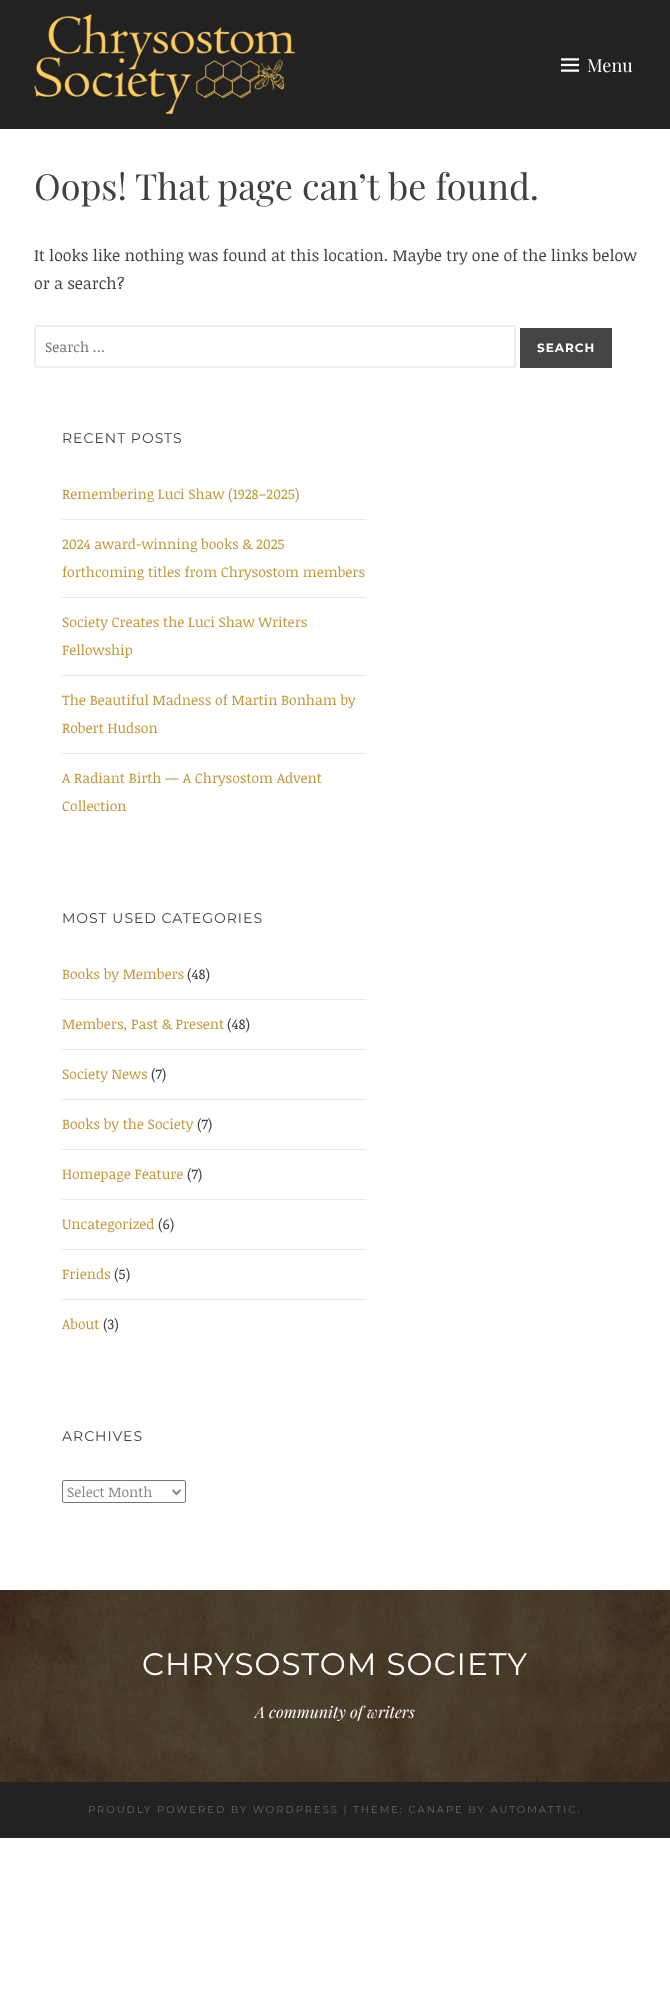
(async () => {
  const canvas = document.querySelector("canvas");
  canvas.width = 670;
  canvas.height = 2002;
  const ctx = canvas.getContext("2d");
  ctx.miterLimit = 4;
  ctx.fontKerning = "normal";
  async function loadImage(src) {
    const img = new Image();
    img.src = src;
    await img.decode();
    return img;
  }
  let path;

  ctx.fillStyle = "#ffffff";
  ctx.fillRect(0, 0, 670, 2002);
  ctx.fillStyle = "#222222";
  ctx.fillRect(0, 0, 670, 129);
  ctx.drawImage(await loadImage("img/1.png"), 34, 14, 261, 100);
  ctx.drawImage(await loadImage("img/2.png"), 561, 58, 18, 14);
  ctx.beginPath();
  ctx.roundRect(35, 326, 480, 41, 1);
  ctx.strokeStyle = "#eeeeee";
  ctx.lineWidth = 2;
  ctx.stroke();
  for (const [x, y, w, h, color] of [
    [520, 328, 92, 40, "#444444"],
    [62, 519, 304, 1, "#ece8e0"],
    [62, 597, 304, 1, "#ece8e0"],
    [62, 675, 304, 1, "#ece8e0"],
    [62, 753, 304, 1, "#ece8e0"],
    [62, 999, 304, 1, "#ece8e0"],
    [62, 1049, 304, 1, "#ece8e0"],
    [62, 1099, 304, 1, "#ece8e0"],
    [62, 1149, 304, 1, "#ece8e0"],
    [62, 1199, 304, 1, "#ece8e0"],
    [62, 1249, 304, 1, "#ece8e0"],
    [62, 1299, 304, 1, "#ece8e0"],
  ]) {
    ctx.fillStyle = color;
    ctx.fillRect(x, y, w, h);
  }
  ctx.beginPath();
  ctx.roundRect(62.5, 1480.5, 123, 22, 1.5);
  ctx.strokeStyle = "#767676";
  ctx.lineWidth = 1;
  ctx.stroke();
  path = new Path2D("M172.5 1490L176.5 1494L180.5 1490");
  ctx.strokeStyle = "#888888";
  ctx.lineWidth = 2;
  ctx.stroke(path);
  ctx.drawImage(await loadImage("img/3.png"), 0, 1590, 670, 192);
  ctx.fillStyle = "#222222";
  ctx.fillRect(0, 1782, 670, 56);
  ctx.font = "18px Playfair Display";
  ctx.fillStyle = "#ffffff";
  ctx.fillText("Menu", 587, 72);
  ctx.font = "36px Playfair Display";
  ctx.fillStyle = "#404040";
  ctx.fillText("Oops! That page can’t be found.", 34, 200);
  ctx.font = "16px Noticia Text";
  ctx.fillText("It looks like nothing was found at this location. Maybe try one of the links below", 34, 261);
  ctx.fillText("or a search?", 34, 289);
  ctx.font = "14px Noticia Text";
  ctx.fillStyle = "#757575";
  ctx.fillText("Search …", 45, 352);
  ctx.letterSpacing = "1px";
  ctx.font = "bold 12px Montserrat";
  ctx.fillStyle = "#ffffff";
  ctx.fillText("SEARCH", 537, 352);
  ctx.font = "14px Montserrat";
  ctx.fillStyle = "#404040";
  ctx.fillText("RECENT POSTS", 62, 443);
  ctx.letterSpacing = "0px";
  ctx.font = "14px Noticia Text";
  ctx.fillStyle = "#c39738";
  for (const [text, x, y] of [
    ["Remembering Luci Shaw (1928–2025)", 62, 499],
    ["2024 award-winning books & 2025", 62, 549],
    ["forthcoming titles from Chrysostom members", 62, 577],
    ["Society Creates the Luci Shaw Writers", 62, 627],
    ["Fellowship", 62, 655],
    ["The Beautiful Madness of Martin Bonham by", 62, 705],
    ["Robert Hudson", 62, 733],
    ["A Radiant Birth — A Chrysostom Advent", 62, 783],
    ["Collection", 62, 811],
  ]) {
    ctx.fillText(text, x, y);
  }
  ctx.letterSpacing = "1px";
  ctx.font = "14px Montserrat";
  ctx.fillStyle = "#404040";
  ctx.fillText("MOST USED CATEGORIES", 62, 923);
  ctx.letterSpacing = "0px";
  ctx.font = "14px Noticia Text";
  ctx.fillStyle = "#c39738";
  ctx.fillText("Books by Members", 62, 979);
  ctx.fillStyle = "#404040";
  ctx.fillText("(48)", 187, 979);
  ctx.fillStyle = "#c39738";
  ctx.fillText("Members, Past & Present", 62, 1029);
  ctx.fillStyle = "#404040";
  ctx.fillText("(48)", 227, 1029);
  ctx.fillStyle = "#c39738";
  ctx.fillText("Society News", 62, 1079);
  ctx.fillStyle = "#404040";
  ctx.fillText("(7)", 151, 1079);
  ctx.fillStyle = "#c39738";
  ctx.fillText("Books by the Society", 62, 1129);
  ctx.fillStyle = "#404040";
  ctx.fillText("(7)", 197, 1129);
  ctx.fillStyle = "#c39738";
  ctx.fillText("Homepage Feature", 62, 1179);
  ctx.fillStyle = "#404040";
  ctx.fillText("(7)", 187, 1179);
  ctx.fillStyle = "#c39738";
  ctx.fillText("Uncategorized", 62, 1229);
  ctx.fillStyle = "#404040";
  ctx.fillText("(6)", 158, 1229);
  ctx.fillStyle = "#c39738";
  ctx.fillText("Friends", 62, 1279);
  ctx.fillStyle = "#404040";
  ctx.fillText("(5)", 114, 1279);
  ctx.fillStyle = "#c39738";
  ctx.fillText("About", 62, 1329);
  ctx.fillStyle = "#404040";
  ctx.fillText("(3)", 103, 1329);
  ctx.letterSpacing = "1px";
  ctx.font = "14px Montserrat";
  ctx.fillText("ARCHIVES", 62, 1441);
  ctx.letterSpacing = "0px";
  ctx.font = "14px Noticia Text";
  ctx.fillStyle = "#888888";
  ctx.fillText("Select Month", 67, 1497);
  ctx.letterSpacing = "1px";
  ctx.font = "31px Montserrat";
  ctx.fillStyle = "#ffffff";
  ctx.fillText("CHRYSOSTOM SOCIETY", 142, 1675);
  ctx.letterSpacing = "0px";
  ctx.font = "italic 16px Playfair Display";
  ctx.fillText("A community of writers", 255, 1718);
  ctx.letterSpacing = "2px";
  ctx.font = "10px Montserrat";
  ctx.fillStyle = "#666666";
  ctx.fillText("PROUDLY POWERED BY WORDPRESS | THEME: CANAPE BY AUTOMATTIC.", 88, 1813);
})();
